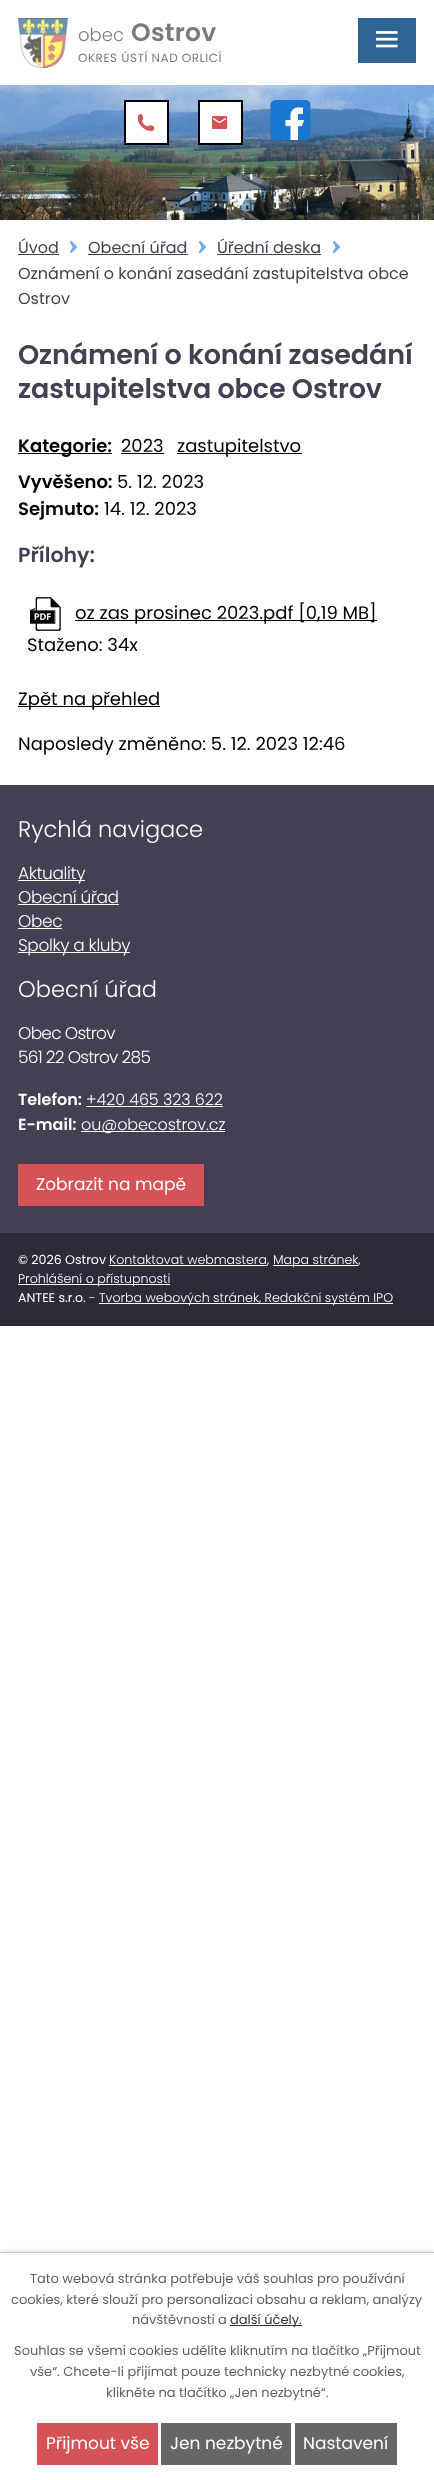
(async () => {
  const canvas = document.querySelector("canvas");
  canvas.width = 434;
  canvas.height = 2480;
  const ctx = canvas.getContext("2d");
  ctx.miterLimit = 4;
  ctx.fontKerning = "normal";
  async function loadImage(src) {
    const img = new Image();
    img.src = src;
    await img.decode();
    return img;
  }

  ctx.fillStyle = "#ffffff";
  ctx.fillRect(0, 0, 434, 2480);
  ctx.drawImage(await loadImage("img/1.png"), 18, 18, 50, 50);
  ctx.drawImage(await loadImage("img/5.png"), 0, 85, 434, 135);
  ctx.beginPath();
  ctx.rect(125, 101, 43, 43);
  ctx.fill();
  ctx.strokeStyle = "#010101";
  ctx.lineWidth = 2;
  ctx.stroke();
  ctx.drawImage(await loadImage("img/2.png"), 138, 114, 17, 17);
  ctx.beginPath();
  ctx.rect(199, 101, 43, 43);
  ctx.fill();
  ctx.stroke();
  ctx.drawImage(await loadImage("img/3.png"), 212, 116, 16, 13);
  ctx.drawImage(await loadImage("img/4.png"), 270, 100, 41, 40);
  ctx.fillStyle = "#2f6394";
  ctx.fillRect(358, 18, 58, 45);
  ctx.drawImage(await loadImage("img/6.png"), 376, 31, 22, 17);
  ctx.fillStyle = "#444053";
  ctx.fillRect(18, 254, 41, 1);
  ctx.drawImage(await loadImage("img/7.png"), 70, 241, 7, 12);
  ctx.fillRect(88, 254, 100, 1);
  ctx.drawImage(await loadImage("img/7.png"), 199, 241, 7, 12);
  ctx.fillRect(217, 254, 104, 1);
  ctx.drawImage(await loadImage("img/7.png"), 333, 241, 7, 12);
  for (const [x, y, w, h, color] of [
    [18, 453, 94, 1, "#000000"],
    [121, 453, 43, 1, "#000000"],
    [177, 453, 125, 1, "#000000"],
  ]) {
    ctx.fillStyle = color;
    ctx.fillRect(x, y, w, h);
  }
  ctx.drawImage(await loadImage("img/8.png"), 30, 597, 31, 34);
  for (const [x, y, w, h, color] of [
    [75, 620, 302, 1, "#000000"],
    [18, 706, 142, 1, "#000000"],
    [0, 785, 434, 448, "#444053"],
    [18, 880, 67, 1, "#ffffff"],
    [18, 904, 101, 1, "#ffffff"],
    [18, 928, 44, 1, "#ffffff"],
    [18, 952, 112, 1, "#ffffff"],
    [86, 1106, 137, 1, "#ffffff"],
    [81, 1131, 144, 1, "#ffffff"],
    [18, 1164, 186, 42, "#d55257"],
    [0, 1233, 434, 93, "#2d2a3a"],
    [109, 1265, 158, 1, "#ffffff"],
    [273, 1265, 85, 1, "#ffffff"],
    [18, 1284, 152, 1, "#ffffff"],
    [99, 1303, 294, 1, "#ffffff"],
  ]) {
    ctx.fillStyle = color;
    ctx.fillRect(x, y, w, h);
  }
  ctx.fillStyle = "rgba(0, 0, 0, 0.2)";
  ctx.filter = "blur(2.5px)";
  ctx.beginPath();
  ctx.rect(0, 2252, 434, 228);
  ctx.fill();
  ctx.filter = "none";
  for (const [x, y, w, h, color] of [
    [0, 2253, 434, 227, "#ffffff"],
    [0, 2252, 434, 1, "#cccccc"],
    [230, 2325, 72, 1, "#333333"],
    [37, 2423, 121, 42, "#d55257"],
    [161, 2423, 130, 42, "#666666"],
    [295, 2423, 102, 42, "#666666"],
  ]) {
    ctx.fillStyle = color;
    ctx.fillRect(x, y, w, h);
  }
  ctx.font = "300 18px Poppins";
  ctx.fillStyle = "#7c7987";
  ctx.fillText("obec", 78, 41);
  ctx.letterSpacing = "0.25px";
  ctx.font = "600 25px Poppins";
  ctx.fillText("Ostrov", 131, 41);
  ctx.letterSpacing = "0.5px";
  ctx.font = "12px Poppins";
  ctx.fillText("OKRES ÚSTÍ NAD ORLICÍ", 78, 62);
  ctx.letterSpacing = "0px";
  ctx.font = "16px Poppins";
  ctx.fillStyle = "#444053";
  for (const [text, x, y] of [
    ["Úvod", 18, 253],
    ["Obecní úřad", 88, 253],
    ["Úřední deska", 217, 253],
    ["Oznámení o konání zasedání zastupitelstva obce", 18, 279],
    ["Ostrov", 18, 304],
  ]) {
    ctx.fillText(text, x, y);
  }
  ctx.letterSpacing = "-0.1px";
  ctx.font = "600 27px Poppins";
  ctx.fillText("Oznámení o konání zasedání", 18, 364);
  ctx.fillText("zastupitelstva obce Ostrov", 18, 398);
  ctx.letterSpacing = "0px";
  ctx.font = "600 18px Poppins";
  ctx.fillStyle = "#000000";
  ctx.fillText("Kategorie:", 18, 452);
  ctx.font = "18px Poppins";
  ctx.fillText("2023", 121, 452);
  ctx.fillText("zastupitelstvo", 177, 452);
  ctx.font = "600 18px Poppins";
  ctx.fillText("Vyvěšeno:", 18, 488);
  ctx.font = "18px Poppins";
  ctx.fillText("5. 12. 2023", 117, 488);
  ctx.font = "600 18px Poppins";
  ctx.fillText("Sejmuto:", 18, 515);
  ctx.font = "18px Poppins";
  ctx.fillText("14. 12. 2023", 104, 515);
  ctx.font = "600 20.5px Poppins";
  ctx.fillStyle = "#444053";
  ctx.fillText("Přílohy:", 18, 562);
  ctx.font = "18px Poppins";
  ctx.fillStyle = "#000000";
  for (const [text, x, y] of [
    ["oz zas prosinec 2023.pdf [0,19 MB]", 75, 619],
    ["Staženo: 34x", 27, 651],
    ["Zpět na přehled", 18, 705],
    ["Naposledy změněno: 5. 12. 2023 12:46", 18, 750],
  ]) {
    ctx.fillText(text, x, y);
  }
  ctx.font = "300 22.5px Poppins";
  ctx.fillStyle = "#ffffff";
  ctx.fillText("Rychlá navigace", 18, 837);
  ctx.letterSpacing = "-0.4px";
  ctx.font = "300 17px Poppins";
  for (const [text, x, y] of [
    ["Aktuality", 18, 879],
    ["Obecní úřad", 18, 903],
    ["Obec", 18, 927],
    ["Spolky a kluby", 18, 951],
  ]) {
    ctx.fillText(text, x, y);
  }
  ctx.letterSpacing = "0px";
  ctx.font = "300 22.5px Poppins";
  ctx.fillText("Obecní úřad", 18, 997);
  ctx.letterSpacing = "-0.75px";
  ctx.font = "300 17px Poppins";
  ctx.fillText("Obec Ostrov", 18, 1039);
  ctx.fillText("561 22 Ostrov 285", 18, 1063);
  ctx.letterSpacing = "0px";
  ctx.font = "600 16px Poppins";
  ctx.fillText("Telefon:", 18, 1105);
  ctx.letterSpacing = "-0.1px";
  ctx.font = "300 16px Poppins";
  ctx.fillText("+420 465 323 622", 86, 1105);
  ctx.letterSpacing = "0px";
  ctx.font = "600 16px Poppins";
  ctx.fillText("E-mail:", 18, 1130);
  ctx.letterSpacing = "-0.1px";
  ctx.font = "300 16px Poppins";
  ctx.fillText("ou@obecostrov.cz", 81, 1130);
  ctx.letterSpacing = "0px";
  ctx.font = "17px Poppins";
  ctx.fillText("Zobrazit na mapě", 36, 1190);
  ctx.font = "12.6px Poppins";
  ctx.fillText("© 2026 Ostrov", 18, 1264);
  ctx.font = "300 12.6px Poppins";
  for (const [text, x, y] of [
    ["Kontaktovat webmastera,", 109, 1264],
    ["Mapa stránek,", 273, 1264],
    ["Prohlášení o přístupnosti", 18, 1283],
  ]) {
    ctx.fillText(text, x, y);
  }
  ctx.font = "12.6px Poppins";
  ctx.fillText("ANTEE s.r.o.", 18, 1302);
  ctx.font = "300 12.6px Poppins";
  ctx.fillText("-", 89, 1302);
  ctx.fillText("Tvorba webových stránek, Redakční systém IPO", 99, 1302);
  ctx.font = "13px Poppins";
  ctx.fillStyle = "#606060";
  for (const [text, x, y] of [
    ["Tato webová stránka potřebuje váš souhlas pro používání", 30, 2283],
    ["cookies, které slouží pro personalizaci obsahu a reklam, analýzy", 11, 2304],
    ["návštěvnosti a", 132, 2324],
  ]) {
    ctx.fillText(text, x, y);
  }
  ctx.fillStyle = "#333333";
  ctx.fillText("další účely.", 230, 2324);
  ctx.fillStyle = "#606060";
  for (const [text, x, y] of [
    ["Souhlas se všemi cookies udělíte kliknutím na tlačítko „Přijmout", 14, 2355],
    ["vše“. Chcete-li přijímat pouze technicky nezbytné cookies,", 30, 2376],
    ["klikněte na tlačítko „Jen nezbytné“.", 106, 2397],
  ]) {
    ctx.fillText(text, x, y);
  }
  ctx.font = "17px Poppins";
  ctx.fillStyle = "#ffffff";
  for (const [text, x, y] of [
    ["Přijmout vše", 46, 2449],
    ["Jen nezbytné", 170, 2449],
    ["Nastavení", 303, 2449],
  ]) {
    ctx.fillText(text, x, y);
  }
})();
